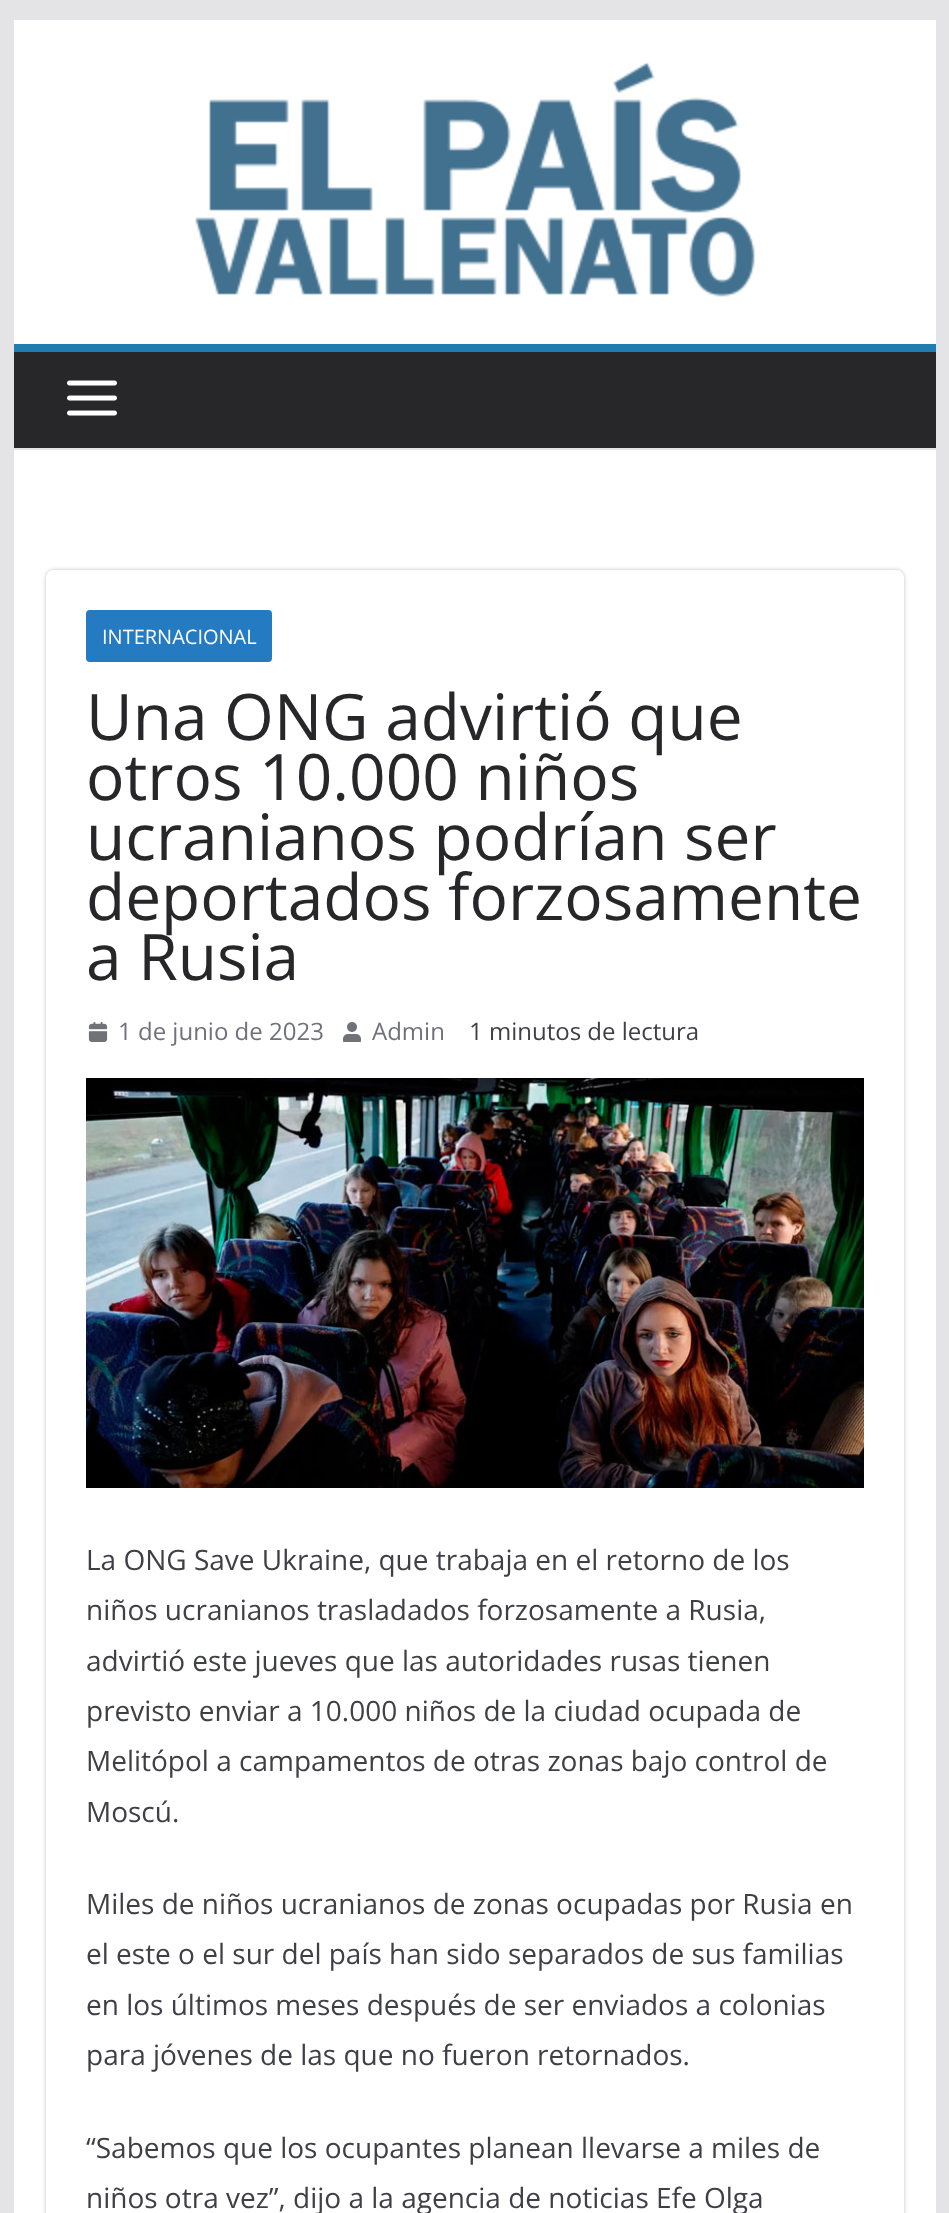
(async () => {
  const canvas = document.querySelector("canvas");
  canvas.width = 949;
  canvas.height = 2213;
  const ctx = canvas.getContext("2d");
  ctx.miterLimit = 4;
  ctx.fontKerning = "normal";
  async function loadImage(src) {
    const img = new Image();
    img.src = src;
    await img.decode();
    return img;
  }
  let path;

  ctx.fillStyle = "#e4e4e7";
  ctx.fillRect(0, 0, 949, 2213);
  ctx.fillStyle = "#ffffff";
  ctx.fillRect(14, 20, 922, 324);
  ctx.drawImage(await loadImage("img/1.png"), 195, 62, 560, 235);
  ctx.fillStyle = "#27272a";
  ctx.fillRect(14, 352, 922, 96);
  ctx.fillStyle = "#207daf";
  ctx.fillRect(14, 344, 922, 8);
  ctx.drawImage(await loadImage("img/2.png"), 67, 380, 50, 36);
  ctx.fillStyle = "#ffffff";
  ctx.fillRect(14, 450, 922, 1763);
  ctx.save();
  path = new Path2D("M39 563H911V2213H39ZM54 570H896C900.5 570 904 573.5 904 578V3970C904 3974.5 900.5 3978 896 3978H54C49.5 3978 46 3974.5 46 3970V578C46 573.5 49.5 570 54 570Z");
  ctx.clip(path, "evenodd");
  ctx.fillStyle = "rgba(0, 0, 0, 0.24)";
  ctx.filter = "blur(2px)";
  ctx.beginPath();
  ctx.roundRect(46, 570, 858, 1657, 8);
  ctx.fill();
  ctx.filter = "none";
  ctx.restore();
  ctx.fillStyle = "#257bc1";
  ctx.beginPath();
  ctx.roundRect(86, 610, 186, 52, 4);
  ctx.fill();
  ctx.drawImage(await loadImage("img/3.png"), 88, 1022, 20, 20);
  ctx.drawImage(await loadImage("img/4.png"), 343, 1022, 18, 20);
  ctx.drawImage(await loadImage("img/5.png"), 86, 1078, 778, 410);
  ctx.font = "20px Open Sans";
  ctx.fillStyle = "#ffffff";
  ctx.fillText("INTERNACIONAL", 102, 644);
  ctx.font = "64px Open Sans";
  ctx.fillStyle = "#27272a";
  for (const [text, x, y] of [
    ["Una ONG advirtió que", 86, 740],
    ["otros 10.000 niños", 86, 800],
    ["ucranianos podrían ser", 86, 860],
    ["deportados forzosamente", 86, 920],
    ["a Rusia", 86, 980],
  ]) {
    ctx.fillText(text, x, y);
  }
  ctx.font = "24px Open Sans";
  ctx.fillStyle = "#71717a";
  ctx.fillText("1 de junio de 2023", 118, 1040);
  ctx.fillText("Admin", 372, 1040);
  ctx.fillStyle = "#3f3f46";
  ctx.fillText("1 minutos de lectura", 469, 1040);
  ctx.font = "28px Open Sans";
  for (const [text, x, y] of [
    ["La ONG Save Ukraine, que trabaja en el retorno de los", 86, 1570],
    ["niños ucranianos trasladados forzosamente a Rusia,", 86, 1620],
    ["advirtió este jueves que las autoridades rusas tienen", 86, 1671],
    ["previsto enviar a 10.000 niños de la ciudad ocupada de", 86, 1721],
    ["Melitópol a campamentos de otras zonas bajo control de", 86, 1771],
    ["Moscú.", 86, 1822],
    ["Miles de niños ucranianos de zonas ocupadas por Rusia en", 86, 1914],
    ["el este o el sur del país han sido separados de sus familias", 86, 1964],
    ["en los últimos meses después de ser enviados a colonias", 86, 2015],
    ["para jóvenes de las que no fueron retornados.", 86, 2065],
    ["“Sabemos que los ocupantes planean llevarse a miles de", 86, 2158],
    ["niños otra vez”, dijo a la agencia de noticias Efe Olga", 86, 2208],
  ]) {
    ctx.fillText(text, x, y);
  }
})();
